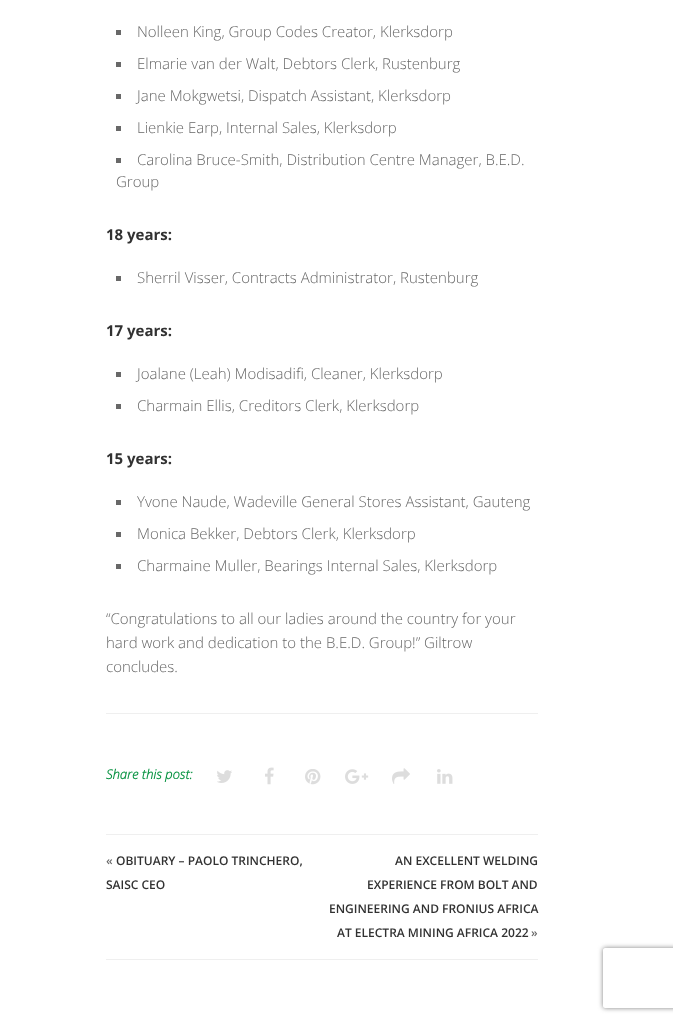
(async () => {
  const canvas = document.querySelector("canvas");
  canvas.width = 673;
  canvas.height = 1022;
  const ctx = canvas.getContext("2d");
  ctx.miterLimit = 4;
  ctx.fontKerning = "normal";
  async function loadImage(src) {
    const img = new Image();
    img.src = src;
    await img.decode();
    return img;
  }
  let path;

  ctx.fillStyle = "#ffffff";
  ctx.fillRect(0, 0, 673, 1022);
  for (const [x, y, w, h, color] of [
    [106, 713, 432, 1, "#efefef"],
    [116, 30, 5, 5, "#686868"],
    [116, 62, 5, 5, "#686868"],
    [116, 94, 5, 5, "#686868"],
    [116, 126, 5, 5, "#686868"],
    [116, 158, 5, 5, "#686868"],
    [116, 276, 5, 5, "#686868"],
    [116, 372, 5, 5, "#686868"],
    [116, 404, 5, 5, "#686868"],
    [116, 500, 5, 5, "#686868"],
    [116, 532, 5, 5, "#686868"],
    [116, 564, 5, 5, "#686868"],
  ]) {
    ctx.fillStyle = color;
    ctx.fillRect(x, y, w, h);
  }
  ctx.drawImage(await loadImage("img/1.png"), 217, 770, 15, 13);
  ctx.drawImage(await loadImage("img/2.png"), 265, 767, 9, 18);
  ctx.drawImage(await loadImage("img/3.png"), 305, 769, 16, 16);
  ctx.drawImage(await loadImage("img/4.png"), 345, 769, 24, 15);
  ctx.drawImage(await loadImage("img/5.png"), 392, 768, 18, 16);
  ctx.drawImage(await loadImage("img/6.png"), 437, 769, 16, 15);
  ctx.fillStyle = "#efefef";
  ctx.fillRect(106, 834, 432, 1);
  ctx.fillRect(106, 959, 432, 1);
  ctx.save();
  path = new Path2D("M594 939H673V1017H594ZM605 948H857C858 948 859 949 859 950V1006C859 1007 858 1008 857 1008H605C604 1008 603 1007 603 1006V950C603 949 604 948 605 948Z");
  ctx.clip(path, "evenodd");
  ctx.fillStyle = "#808080";
  ctx.filter = "blur(2.5px)";
  ctx.beginPath();
  ctx.roundRect(603, 948, 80, 60, 2);
  ctx.fill();
  ctx.filter = "none";
  ctx.restore();
  ctx.font = "300 15px Open Sans";
  ctx.fillStyle = "#686868";
  for (const [text, x, y] of [
    ["Nolleen King, Group Codes Creator, Klerksdorp", 137, 37],
    ["Elmarie van der Walt, Debtors Clerk, Rustenburg", 137, 69],
    ["Jane Mokgwetsi, Dispatch Assistant, Klerksdorp", 137, 101],
    ["Lienkie Earp, Internal Sales, Klerksdorp", 137, 133],
    ["Carolina Bruce-Smith, Distribution Centre Manager, B.E.D.", 137, 165],
    ["Group", 116, 187],
  ]) {
    ctx.fillText(text, x, y);
  }
  ctx.font = "bold 15px Open Sans";
  ctx.fillStyle = "#323232";
  ctx.fillText("18 years:", 106, 240);
  ctx.font = "300 15px Open Sans";
  ctx.fillStyle = "#686868";
  ctx.fillText("Sherril Visser, Contracts Administrator, Rustenburg", 137, 283);
  ctx.font = "bold 15px Open Sans";
  ctx.fillStyle = "#323232";
  ctx.fillText("17 years:", 106, 336);
  ctx.font = "300 15px Open Sans";
  ctx.fillStyle = "#686868";
  ctx.fillText("Joalane (Leah) Modisadifi, Cleaner, Klerksdorp", 137, 379);
  ctx.fillText("Charmain Ellis, Creditors Clerk, Klerksdorp", 137, 411);
  ctx.font = "bold 15px Open Sans";
  ctx.fillStyle = "#323232";
  ctx.fillText("15 years:", 106, 464);
  ctx.font = "300 15px Open Sans";
  ctx.fillStyle = "#686868";
  for (const [text, x, y] of [
    ["Yvone Naude, Wadeville General Stores Assistant, Gauteng", 137, 507],
    ["Monica Bekker, Debtors Clerk, Klerksdorp", 137, 539],
    ["Charmaine Muller, Bearings Internal Sales, Klerksdorp", 137, 571],
    ["“Congratulations to all our ladies around the country for your", 106, 624],
    ["hard work and dedication to the B.E.D. Group!” Giltrow", 106, 648],
    ["concludes.", 106, 672],
  ]) {
    ctx.fillText(text, x, y);
  }
  ctx.font = "italic bold 13px Open Sans";
  ctx.fillStyle = "#0b9444";
  ctx.fillText("Share this post:", 106, 779);
  ctx.font = "600 12px Open Sans";
  ctx.fillStyle = "#686868";
  ctx.fillText("«", 106, 865);
  ctx.fillStyle = "#323232";
  for (const [text, x, y] of [
    ["OBITUARY – PAOLO TRINCHERO,", 116, 865],
    ["SAISC CEO", 106, 889],
    ["AN EXCELLENT WELDING", 395, 865],
    ["EXPERIENCE FROM BOLT AND", 367, 889],
    ["ENGINEERING AND FRONIUS AFRICA", 329, 913],
    ["AT ELECTRA MINING AFRICA 2022", 337, 937],
  ]) {
    ctx.fillText(text, x, y);
  }
  ctx.fillStyle = "#686868";
  ctx.fillText("»", 531, 937);
})();
